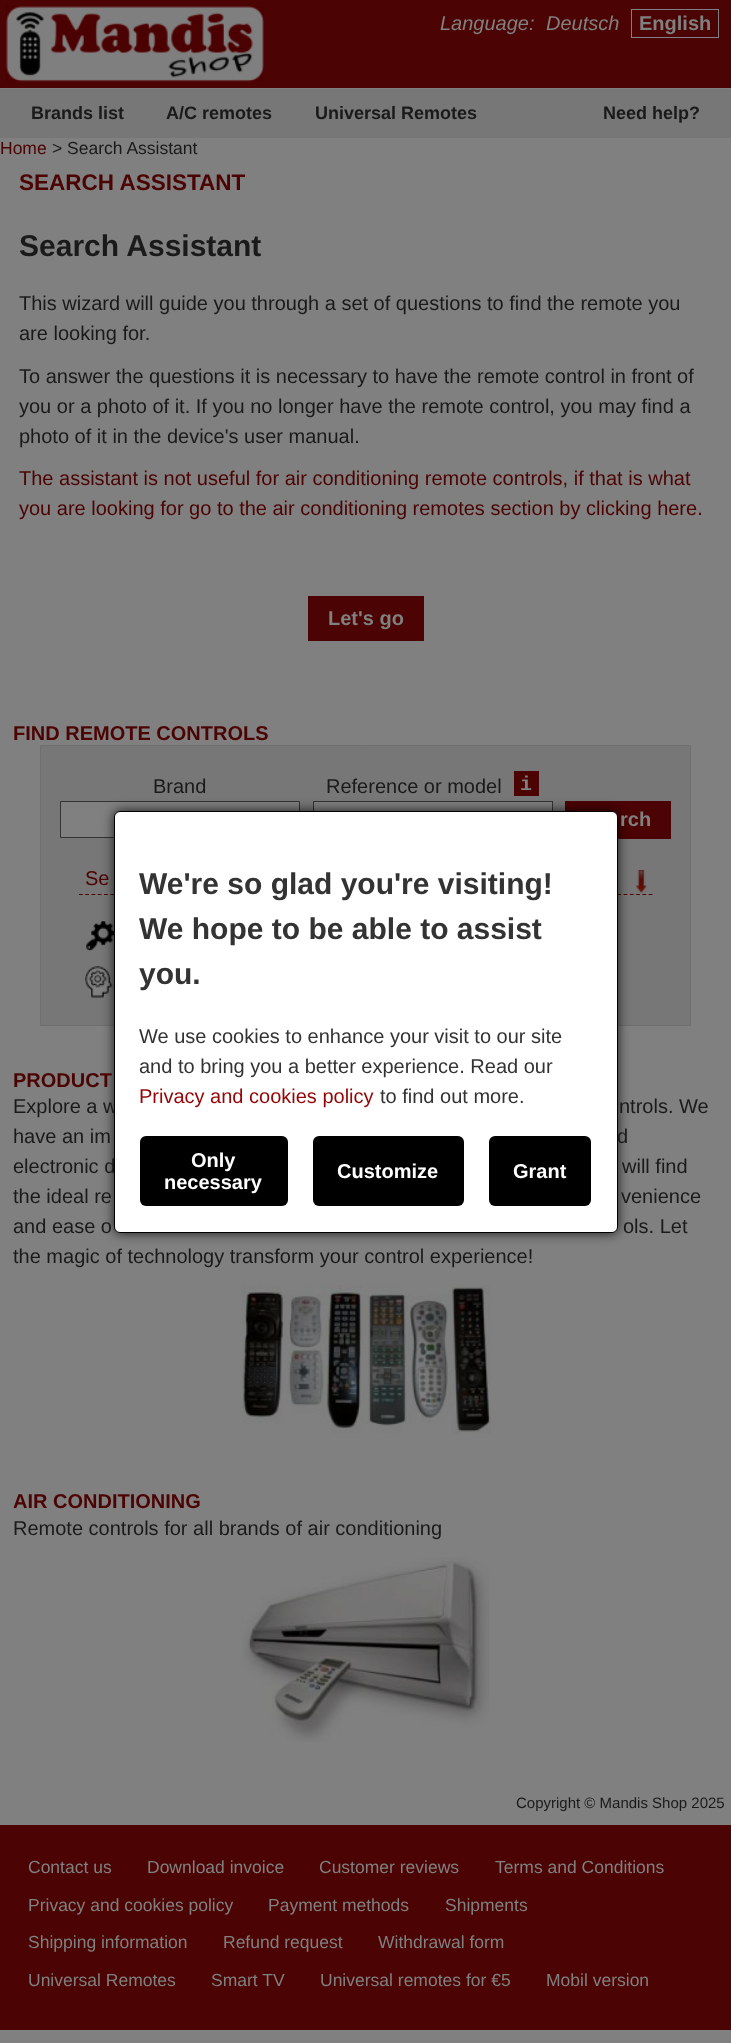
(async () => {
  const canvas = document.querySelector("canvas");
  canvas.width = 731;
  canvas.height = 2043;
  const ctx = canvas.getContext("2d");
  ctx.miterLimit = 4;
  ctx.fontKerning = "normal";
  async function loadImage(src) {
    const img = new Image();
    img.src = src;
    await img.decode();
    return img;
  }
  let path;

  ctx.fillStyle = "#808080";
  ctx.fillRect(0, 0, 731, 2043);
  ctx.fillStyle = "#4b0303";
  ctx.fillRect(0, 0, 731, 88);
  ctx.drawImage(await loadImage("img/1.png"), 6, 6, 258, 76);
  ctx.strokeStyle = "#808080";
  ctx.strokeRect(631.5, 9.5, 87, 28);
  ctx.fillStyle = "#777777";
  ctx.fillRect(0, 89, 731, 49);
  ctx.fillStyle = "#4b0303";
  ctx.fillRect(308, 596, 116, 45);
  ctx.fillStyle = "#777777";
  ctx.beginPath();
  ctx.rect(40.5, 745.5, 650, 280);
  ctx.fill();
  ctx.strokeStyle = "#6f6f6f";
  ctx.stroke();
  ctx.fillStyle = "#808080";
  ctx.beginPath();
  ctx.rect(60.5, 801.5, 239, 36);
  ctx.fill();
  ctx.strokeStyle = "#333333";
  ctx.stroke();
  ctx.fillStyle = "#4b0303";
  ctx.fillRect(514, 771, 25, 25);
  ctx.fillStyle = "#808080";
  ctx.fillRect(314, 802, 238, 9);
  ctx.strokeRect(313.5, 801.5, 239, 36);
  ctx.fillStyle = "#4b0303";
  ctx.fillRect(565, 801, 106, 38);
  path = new Path2D("M79 894.5H652.5");
  ctx.strokeStyle = "#4b0303";
  ctx.lineWidth = 1.2;
  ctx.setLineDash([3.75, 2.51]);
  ctx.stroke(path);
  ctx.drawImage(await loadImage("img/2.png"), 636, 870, 11, 23);
  ctx.drawImage(await loadImage("img/3.png"), 86, 921, 28, 30);
  ctx.drawImage(await loadImage("img/4.png"), 85, 966, 28, 32);
  ctx.fillStyle = "rgba(0, 0, 0, 0.8)";
  ctx.filter = "blur(6px)";
  ctx.beginPath();
  ctx.roundRect(114, 811, 504, 422, 6);
  ctx.fill();
  ctx.filter = "none";
  ctx.drawImage(await loadImage("img/5.png"), 241, 1285, 250, 149);
  ctx.drawImage(await loadImage("img/6.png"), 241, 1557, 248, 185);
  ctx.fillStyle = "#4b0303";
  ctx.fillRect(0, 1825, 731, 205);
  ctx.font = "italic 20px Liberation Sans";
  ctx.fillStyle = "#808080";
  ctx.fillText("Language:", 440, 30);
  ctx.fillText("Deutsch", 546, 30);
  ctx.font = "bold 20px Liberation Sans";
  ctx.fillText("English", 639, 30);
  ctx.font = "bold 18px Liberation Sans";
  ctx.fillStyle = "#1a1a1a";
  for (const [text, x, y] of [
    ["Brands list", 31, 119],
    ["A/C remotes", 166, 119],
    ["Universal Remotes", 315, 119],
    ["Need help?", 603, 119],
  ]) {
    ctx.fillText(text, x, y);
  }
  ctx.font = "17.5px Liberation Sans";
  ctx.fillStyle = "#4b0303";
  ctx.fillText("Home", 0, 154);
  ctx.fillStyle = "#1a1a1a";
  ctx.fillText("> Search Assistant", 52, 154);
  ctx.font = "bold 22.5px Liberation Sans";
  ctx.fillStyle = "#4b0303";
  ctx.fillText("SEARCH ASSISTANT", 19, 190);
  ctx.font = "bold 30px Liberation Sans";
  ctx.fillStyle = "#1a1a1a";
  ctx.fillText("Search Assistant", 19, 256);
  ctx.font = "20px Liberation Sans";
  for (const [text, x, y] of [
    ["This wizard will guide you through a set of questions to find the remote you", 19, 310],
    ["are looking for.", 19, 340],
    ["To answer the questions it is necessary to have the remote control in front of", 19, 383],
    ["you or a photo of it. If you no longer have the remote control, you may find a", 19, 413],
    ["photo of it in the device's user manual.", 19, 443],
  ]) {
    ctx.fillText(text, x, y);
  }
  ctx.fillStyle = "#4b0303";
  ctx.fillText("The assistant is not useful for air conditioning remote controls, if that is what", 19, 485);
  ctx.fillText("you are looking for go to the air conditioning remotes section by clicking here.", 19, 515);
  ctx.font = "bold 20px Liberation Sans";
  ctx.fillStyle = "#808080";
  ctx.fillText("Let's go", 328, 625);
  ctx.fillStyle = "#4b0303";
  ctx.fillText("FIND REMOTE CONTROLS", 13, 740);
  ctx.font = "20px Liberation Sans";
  ctx.fillStyle = "#1a1a1a";
  ctx.fillText("Brand", 153, 793);
  ctx.fillText("Reference or model", 326, 793);
  ctx.font = "bold 20px Liberation Mono";
  ctx.fillStyle = "#808080";
  ctx.fillText("i", 520, 790);
  ctx.font = "bold 20px Liberation Sans";
  ctx.fillText("rch", 620, 826);
  ctx.font = "20px Liberation Sans";
  ctx.fillStyle = "#4b0303";
  ctx.fillText("Se", 85, 885);
  ctx.font = "bold 20px Liberation Sans";
  ctx.fillText("PRODUCT", 13, 1087);
  ctx.font = "20px Liberation Sans";
  ctx.fillStyle = "#1a1a1a";
  ctx.fillText("Explore a w", 13, 1113);
  ctx.fillStyle = "#ffffff";
  ctx.beginPath();
  ctx.roundRect(114.5, 811.5, 503, 421, 5.5);
  ctx.fill();
  ctx.strokeStyle = "#000000";
  ctx.lineWidth = 1;
  ctx.setLineDash([]);
  ctx.stroke();
  ctx.fillStyle = "#000000";
  ctx.beginPath();
  ctx.roundRect(489, 1136, 102, 70, 6);
  ctx.fill();
  ctx.font = "bold 20px Liberation Sans";
  ctx.fillStyle = "#ffffff";
  ctx.fillText("Grant", 513, 1178);
  ctx.fillStyle = "#000000";
  ctx.beginPath();
  ctx.roundRect(313, 1136, 151, 70, 6);
  ctx.fill();
  ctx.fillStyle = "#ffffff";
  ctx.fillText("Customize", 337, 1178);
  ctx.fillStyle = "#000000";
  ctx.beginPath();
  ctx.roundRect(140, 1136, 148, 70, 6);
  ctx.fill();
  ctx.fillStyle = "#ffffff";
  ctx.fillText("necessary", 164, 1189);
  ctx.fillText("Only", 191, 1167);
  ctx.font = "20px Liberation Sans";
  ctx.fillStyle = "#333333";
  ctx.fillText("to find out more.", 380, 1103);
  ctx.fillStyle = "#950505";
  ctx.fillText("Privacy and cookies policy", 139, 1103);
  ctx.fillStyle = "#333333";
  ctx.fillText("and to bring you a better experience. Read our", 139, 1073);
  ctx.fillText("We use cookies to enhance your visit to our site", 139, 1043);
  ctx.font = "bold 30px Liberation Sans";
  for (const [text, x, y] of [
    ["you.", 139, 984],
    ["We hope to be able to assist", 139, 939],
    ["We're so glad you're visiting!", 139, 894],
  ]) {
    ctx.fillText(text, x, y);
  }
  ctx.font = "20px Liberation Sans";
  ctx.fillStyle = "#1a1a1a";
  for (const [text, x, y] of [
    ["ntrols. We", 619, 1113],
    ["have an im", 13, 1143],
    ["d", 617, 1143],
    ["electronic d", 13, 1173],
    ["will find", 622, 1173],
    ["the ideal re", 13, 1203],
    ["venience", 621, 1203],
    ["and ease o", 13, 1233],
    ["ols. Let", 623, 1233],
    ["the magic of technology transform your control experience!", 13, 1263],
  ]) {
    ctx.fillText(text, x, y);
  }
  ctx.font = "bold 20px Liberation Sans";
  ctx.fillStyle = "#4b0303";
  ctx.fillText("AIR CONDITIONING", 13, 1508);
  ctx.font = "20px Liberation Sans";
  ctx.fillStyle = "#1a1a1a";
  ctx.fillText("Remote controls for all brands of air conditioning", 13, 1535);
  ctx.font = "15px Liberation Sans";
  ctx.fillText("Copyright © Mandis Shop 2025", 516, 1808);
  ctx.font = "17.5px Liberation Sans";
  ctx.fillStyle = "#808080";
  for (const [text, x, y] of [
    ["Contact us", 28, 1873],
    ["Download invoice", 147, 1873],
    ["Customer reviews", 319, 1873],
    ["Terms and Conditions", 495, 1873],
    ["Privacy and cookies policy", 28, 1911],
    ["Payment methods", 268, 1911],
    ["Shipments", 445, 1911],
    ["Shipping information", 28, 1948],
    ["Refund request", 223, 1948],
    ["Withdrawal form", 378, 1948],
    ["Universal Remotes", 28, 1986],
    ["Smart TV", 211, 1986],
    ["Universal remotes for €5", 320, 1986],
    ["Mobil version", 546, 1986],
  ]) {
    ctx.fillText(text, x, y);
  }
})();
